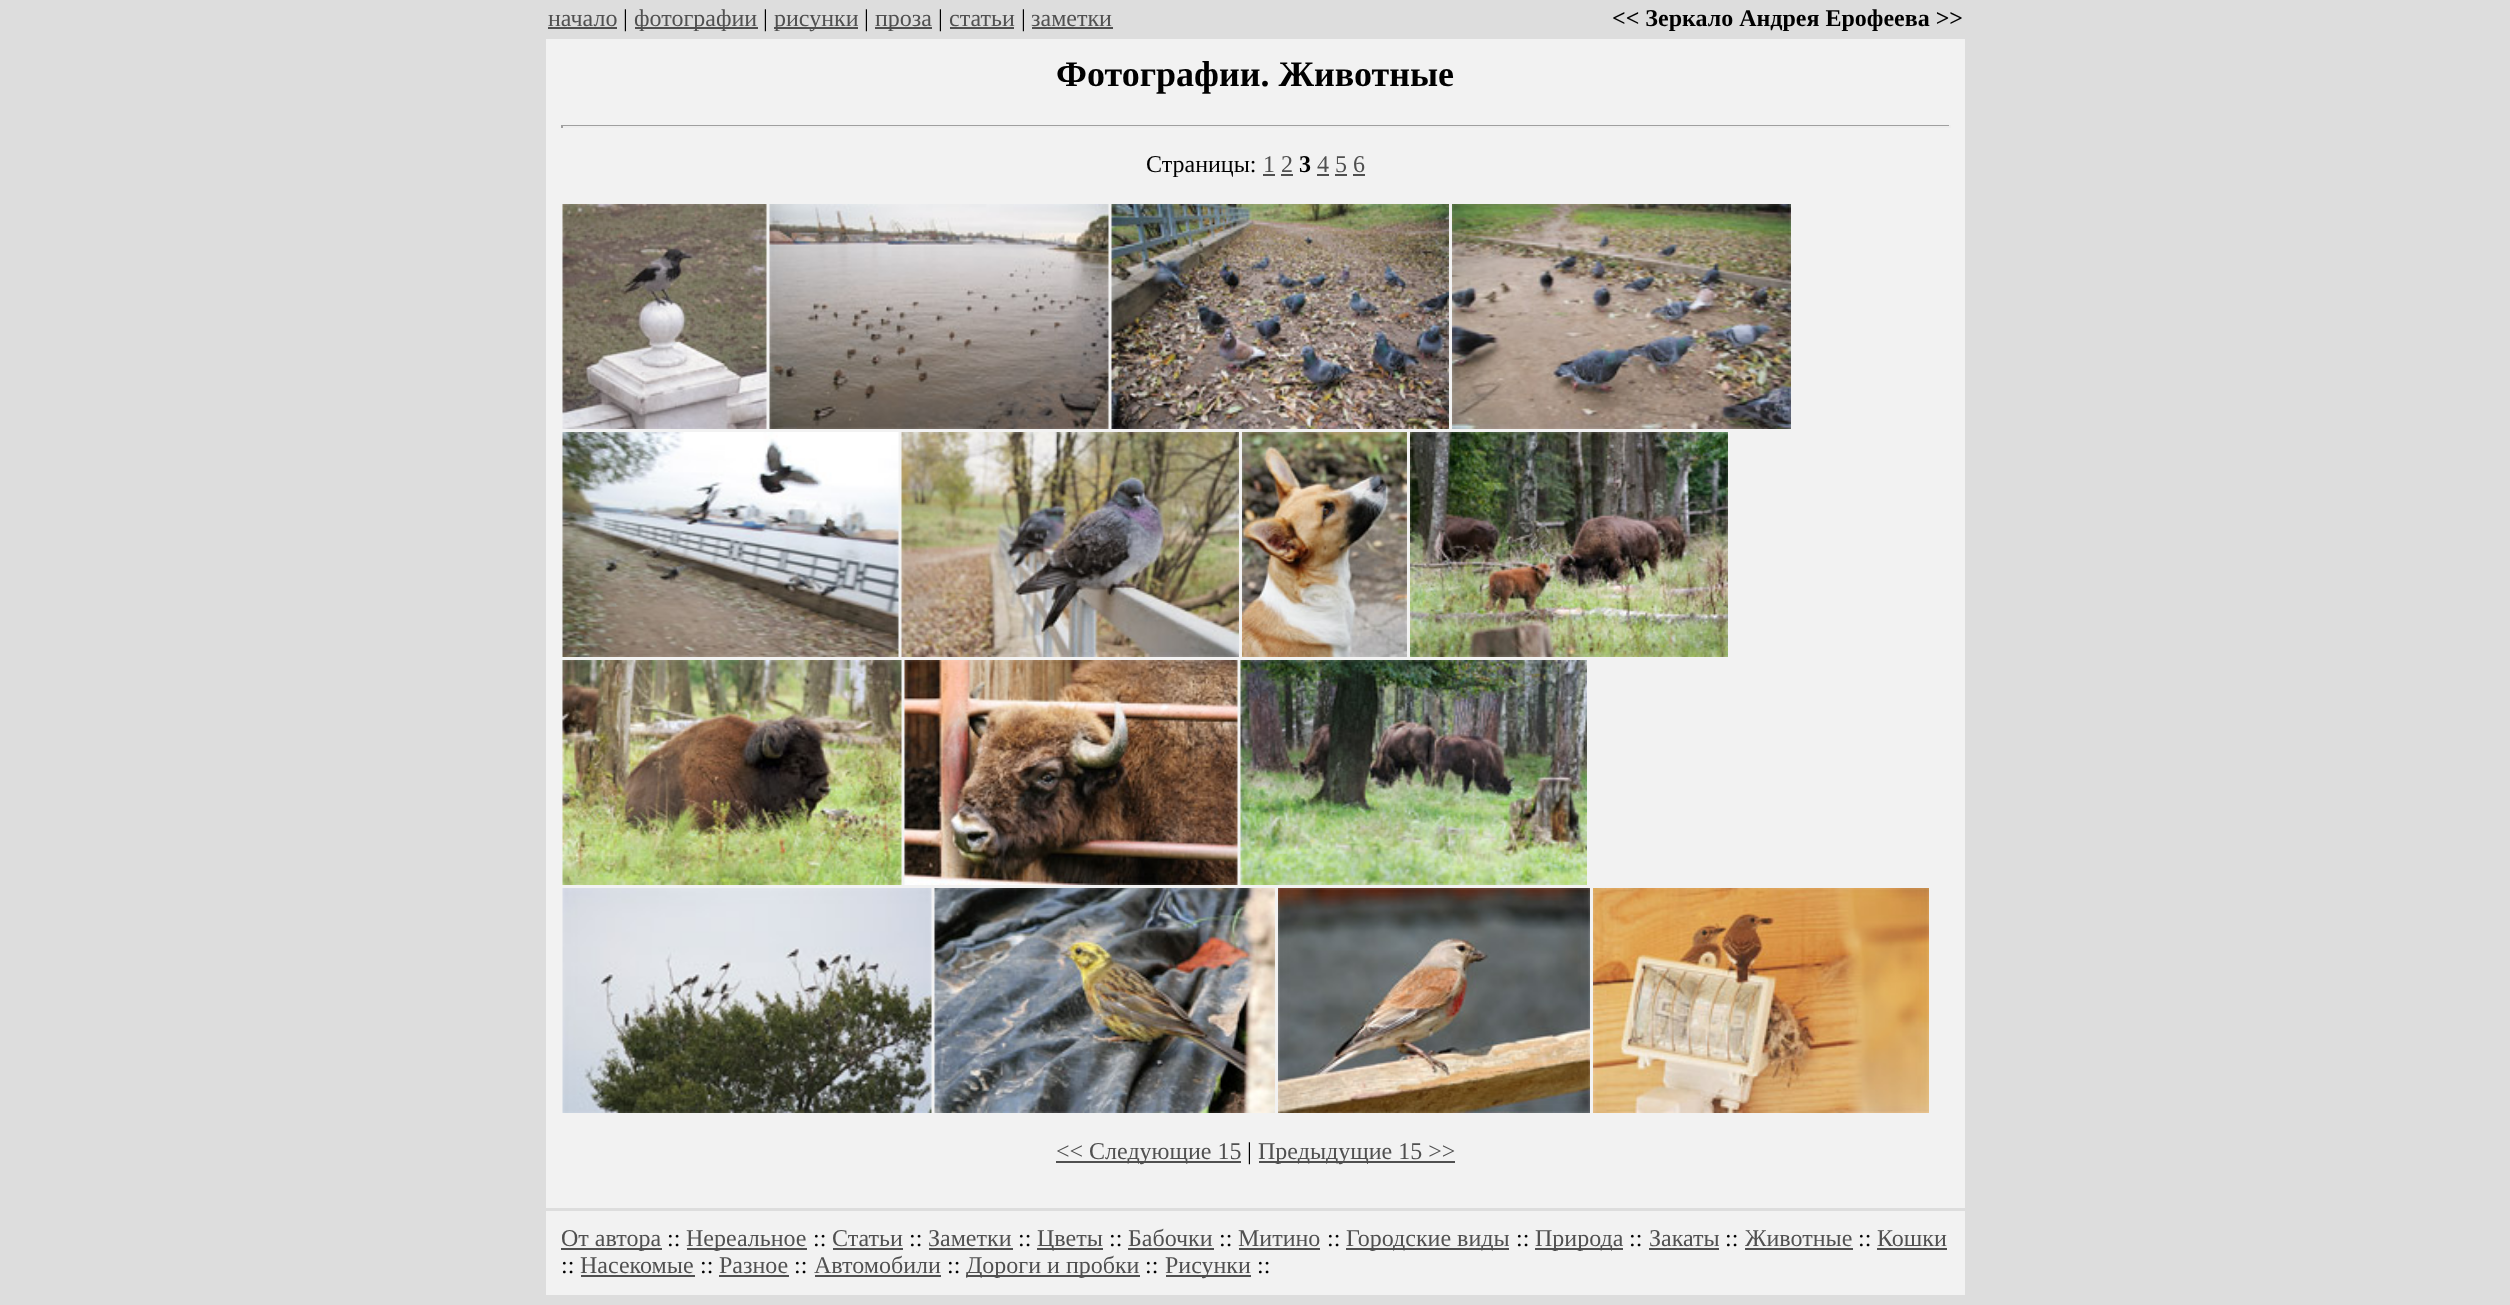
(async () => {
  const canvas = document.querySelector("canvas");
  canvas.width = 2510;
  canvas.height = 1305;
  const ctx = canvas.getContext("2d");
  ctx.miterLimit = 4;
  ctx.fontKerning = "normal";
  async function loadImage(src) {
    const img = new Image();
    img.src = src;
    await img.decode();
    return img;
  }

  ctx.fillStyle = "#dddddd";
  ctx.fillRect(0, 0, 2510, 1305);
  for (const [x, y, w, h, color] of [
    [548, 27, 69, 2, "#505050"],
    [635, 27, 123, 2, "#505050"],
    [774, 27, 84, 2, "#505050"],
    [875, 27, 57, 2, "#505050"],
    [950, 27, 64, 2, "#505050"],
    [1032, 27, 81, 2, "#505050"],
    [546, 39, 1419, 1169, "#f2f2f2"],
    [561, 125, 1389, 1, "#9f9f9f"],
    [1949, 125, 2, 3, "#eeeeee"],
    [561, 126, 1389, 2, "#eeeeee"],
    [561, 125, 2, 3, "#9f9f9f"],
    [1263, 174, 12, 2, "#505050"],
    [1317, 174, 12, 2, "#505050"],
    [1281, 174, 12, 2, "#505050"],
    [1335, 174, 12, 2, "#505050"],
    [1353, 174, 12, 2, "#505050"],
  ]) {
    ctx.fillStyle = color;
    ctx.fillRect(x, y, w, h);
  }
  ctx.drawImage(await loadImage("img/1.png"), 562, 204, 205, 225);
  ctx.drawImage(await loadImage("img/2.png"), 769, 204, 340, 225);
  ctx.drawImage(await loadImage("img/3.png"), 1111, 204, 338, 225);
  ctx.drawImage(await loadImage("img/4.png"), 1452, 204, 339, 225);
  ctx.drawImage(await loadImage("img/5.png"), 562, 432, 337, 225);
  ctx.drawImage(await loadImage("img/6.png"), 901, 432, 338, 225);
  ctx.drawImage(await loadImage("img/7.png"), 1242, 432, 165, 225);
  ctx.drawImage(await loadImage("img/8.png"), 1410, 432, 318, 225);
  ctx.drawImage(await loadImage("img/9.png"), 562, 660, 340, 225);
  ctx.drawImage(await loadImage("img/10.png"), 904, 660, 334, 225);
  ctx.drawImage(await loadImage("img/11.png"), 1240, 660, 347, 225);
  ctx.drawImage(await loadImage("img/12.png"), 562, 888, 370, 225);
  ctx.drawImage(await loadImage("img/13.png"), 934, 888, 341, 225);
  ctx.drawImage(await loadImage("img/14.png"), 1278, 888, 312, 225);
  ctx.drawImage(await loadImage("img/15.png"), 1593, 888, 336, 225);
  for (const [x, y, w, h, color] of [
    [1056, 1161, 185, 2, "#505050"],
    [1259, 1161, 196, 2, "#505050"],
    [546, 1211, 1419, 84, "#f2f2f2"],
    [561, 1248, 101, 2, "#505050"],
    [687, 1248, 120, 2, "#505050"],
    [833, 1248, 70, 2, "#505050"],
    [929, 1248, 84, 2, "#505050"],
    [1037, 1248, 66, 2, "#505050"],
    [1128, 1248, 86, 2, "#505050"],
    [1239, 1248, 81, 2, "#505050"],
    [1346, 1248, 163, 2, "#505050"],
    [1535, 1248, 88, 2, "#505050"],
    [1649, 1248, 70, 2, "#505050"],
    [1745, 1248, 108, 2, "#505050"],
    [1877, 1248, 70, 2, "#505050"],
    [581, 1275, 114, 2, "#505050"],
    [719, 1275, 70, 2, "#505050"],
    [815, 1275, 126, 2, "#505050"],
    [966, 1275, 174, 2, "#505050"],
    [1166, 1275, 85, 2, "#505050"],
  ]) {
    ctx.fillStyle = color;
    ctx.fillRect(x, y, w, h);
  }
  ctx.font = "24px Liberation Serif";
  ctx.fillText("начало", 548, 26);
  ctx.fillStyle = "#000000";
  ctx.fillText("|", 623, 26);
  ctx.fillStyle = "#505050";
  ctx.fillText("фотографии", 634, 26);
  ctx.fillStyle = "#000000";
  ctx.fillText("|", 763, 26);
  ctx.fillStyle = "#505050";
  ctx.fillText("рисунки", 774, 26);
  ctx.fillStyle = "#000000";
  ctx.fillText("|", 864, 26);
  ctx.fillStyle = "#505050";
  ctx.fillText("проза", 875, 26);
  ctx.fillStyle = "#000000";
  ctx.fillText("|", 938, 26);
  ctx.fillStyle = "#505050";
  ctx.fillText("статьи", 949, 26);
  ctx.fillStyle = "#000000";
  ctx.fillText("|", 1021, 26);
  ctx.fillStyle = "#505050";
  ctx.fillText("заметки", 1031, 26);
  ctx.font = "bold 24px Liberation Serif";
  ctx.fillStyle = "#000000";
  ctx.fillText("<< Зеркало Андрея Ерофеева >>", 1612, 26);
  ctx.font = "bold 36px Liberation Serif";
  ctx.fillText("Фотографии. Животные", 1056, 86);
  ctx.font = "24px Liberation Serif";
  ctx.fillText("Страницы:", 1146, 172);
  ctx.fillStyle = "#505050";
  ctx.fillText("1 2", 1263, 172);
  ctx.font = "bold 24px Liberation Serif";
  ctx.fillStyle = "#000000";
  ctx.fillText("3", 1299, 172);
  ctx.font = "24px Liberation Serif";
  ctx.fillStyle = "#505050";
  ctx.fillText("4 5 6", 1317, 172);
  ctx.fillText("<< Следующие 15", 1056, 1159);
  ctx.fillStyle = "#000000";
  ctx.fillText("|", 1247, 1159);
  ctx.fillStyle = "#505050";
  ctx.fillText("Предыдущие 15 >>", 1258, 1159);
  ctx.fillText("От автора", 561, 1246);
  ctx.fillStyle = "#000000";
  ctx.fillText("::", 667, 1246);
  ctx.fillStyle = "#505050";
  ctx.fillText("Нереальное", 686, 1246);
  ctx.fillStyle = "#000000";
  ctx.fillText("::", 813, 1246);
  ctx.fillStyle = "#505050";
  ctx.fillText("Статьи", 832, 1246);
  ctx.fillStyle = "#000000";
  ctx.fillText("::", 909, 1246);
  ctx.fillStyle = "#505050";
  ctx.fillText("Заметки", 928, 1246);
  ctx.fillStyle = "#000000";
  ctx.fillText("::", 1018, 1246);
  ctx.fillStyle = "#505050";
  ctx.fillText("Цветы", 1037, 1246);
  ctx.fillStyle = "#000000";
  ctx.fillText("::", 1109, 1246);
  ctx.fillStyle = "#505050";
  ctx.fillText("Бабочки", 1128, 1246);
  ctx.fillStyle = "#000000";
  ctx.fillText("::", 1219, 1246);
  ctx.fillStyle = "#505050";
  ctx.fillText("Митино", 1238, 1246);
  ctx.fillStyle = "#000000";
  ctx.fillText("::", 1327, 1246);
  ctx.fillStyle = "#505050";
  ctx.fillText("Городские виды", 1346, 1246);
  ctx.fillStyle = "#000000";
  ctx.fillText("::", 1516, 1246);
  ctx.fillStyle = "#505050";
  ctx.fillText("Природа", 1535, 1246);
  ctx.fillStyle = "#000000";
  ctx.fillText("::", 1629, 1246);
  ctx.fillStyle = "#505050";
  ctx.fillText("Закаты", 1649, 1246);
  ctx.fillStyle = "#000000";
  ctx.fillText("::", 1725, 1246);
  ctx.fillStyle = "#505050";
  ctx.fillText("Животные", 1745, 1246);
  ctx.fillStyle = "#000000";
  ctx.fillText("::", 1858, 1246);
  ctx.fillStyle = "#505050";
  ctx.fillText("Кошки", 1877, 1246);
  ctx.fillStyle = "#000000";
  ctx.fillText("::", 561, 1273);
  ctx.fillStyle = "#505050";
  ctx.fillText("Насекомые", 580, 1273);
  ctx.fillStyle = "#000000";
  ctx.fillText("::", 700, 1273);
  ctx.fillStyle = "#505050";
  ctx.fillText("Разное", 719, 1273);
  ctx.fillStyle = "#000000";
  ctx.fillText("::", 794, 1273);
  ctx.fillStyle = "#505050";
  ctx.fillText("Автомобили", 814, 1273);
  ctx.fillStyle = "#000000";
  ctx.fillText("::", 947, 1273);
  ctx.fillStyle = "#505050";
  ctx.fillText("Дороги и пробки", 966, 1273);
  ctx.fillStyle = "#000000";
  ctx.fillText("::", 1145, 1273);
  ctx.fillStyle = "#505050";
  ctx.fillText("Рисунки", 1165, 1273);
  ctx.fillStyle = "#000000";
  ctx.fillText("::", 1257, 1273);
})();
